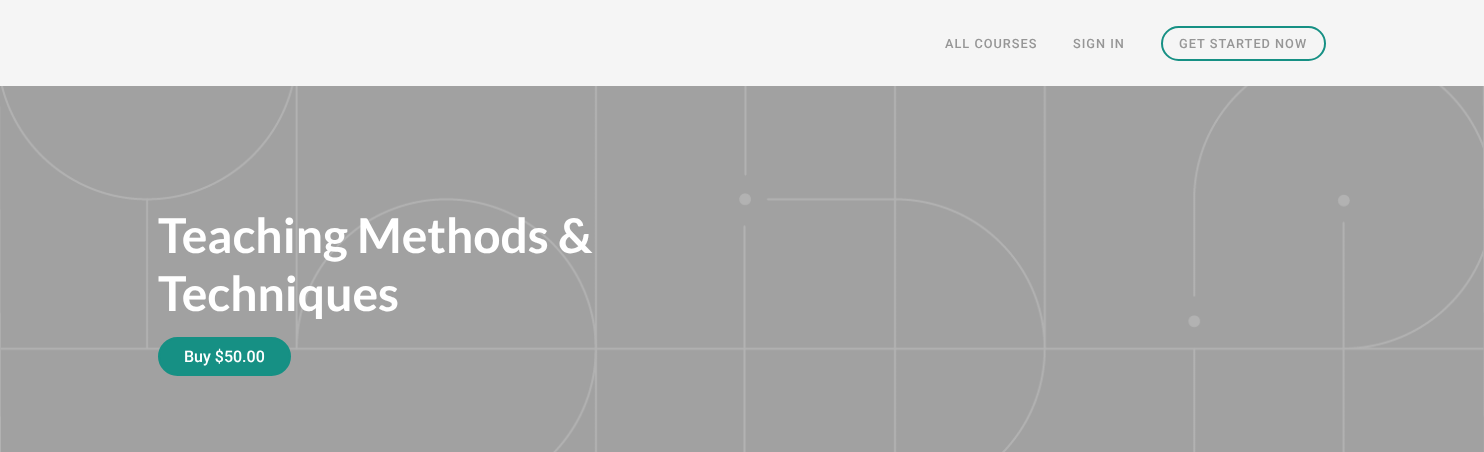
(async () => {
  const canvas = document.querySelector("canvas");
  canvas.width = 1484;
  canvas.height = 452;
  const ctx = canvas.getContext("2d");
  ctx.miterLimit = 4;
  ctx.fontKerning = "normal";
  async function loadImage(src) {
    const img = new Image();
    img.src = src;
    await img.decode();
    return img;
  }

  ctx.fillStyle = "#ffffff";
  ctx.fillRect(0, 0, 1484, 452);
  ctx.fillStyle = "#f5f5f5";
  ctx.fillRect(0, 0, 1484, 86);
  ctx.beginPath();
  ctx.roundRect(1162, 27, 163, 33, 16.5);
  ctx.strokeStyle = "#169084";
  ctx.lineWidth = 2;
  ctx.stroke();
  ctx.drawImage(await loadImage("img/1.png"), 0, 86, 1484, 366);
  ctx.fillStyle = "#169084";
  ctx.beginPath();
  ctx.roundRect(159, 338, 131, 37, 18.5);
  ctx.fill();
  ctx.stroke();
  ctx.letterSpacing = "1px";
  ctx.font = "500 12.75px Roboto";
  ctx.fillStyle = "#969696";
  for (const [text, x, y] of [
    ["ALL COURSES", 945, 48],
    ["SIGN IN", 1073, 48],
    ["GET STARTED NOW", 1179, 48],
  ]) {
    ctx.fillText(text, x, y);
  }
  ctx.letterSpacing = "0px";
  ctx.font = "bold 48px Lato";
  ctx.fillStyle = "#ffffff";
  ctx.fillText("Teaching Methods &", 158, 253);
  ctx.fillText("Techniques", 158, 311);
  ctx.font = "500 16px Roboto";
  ctx.fillText("Buy $50.00", 184, 362);
})();
